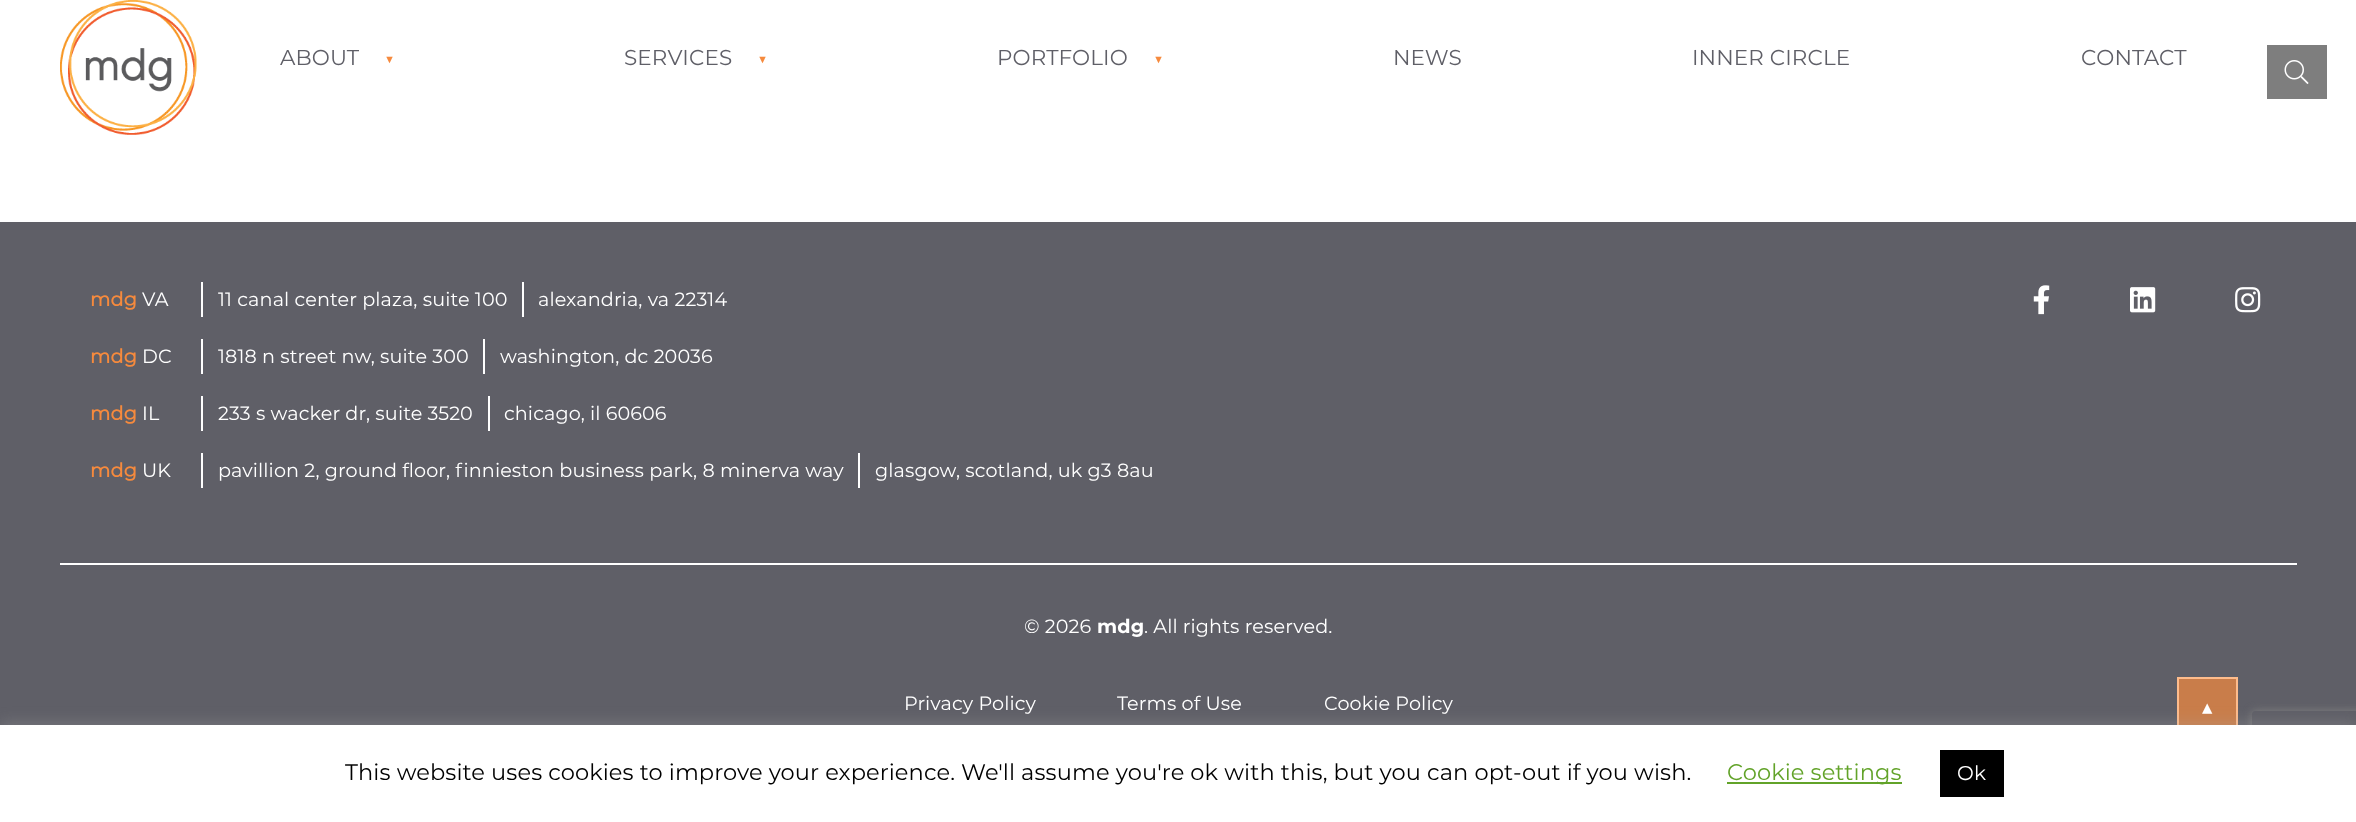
(async () => {
  const canvas = document.querySelector("canvas");
  canvas.width = 2356;
  canvas.height = 822;
  const ctx = canvas.getContext("2d");
  ctx.miterLimit = 4;
  ctx.fontKerning = "normal";
  async function loadImage(src) {
    const img = new Image();
    img.src = src;
    await img.decode();
    return img;
  }
  let path;

  ctx.fillStyle = "#5f5f67";
  ctx.fillRect(0, 0, 2356, 822);
  ctx.fillStyle = "#ffffff";
  ctx.fillRect(0, 0, 2356, 222);
  ctx.drawImage(await loadImage("img/1.png"), 60, 0, 137, 135);
  ctx.fillStyle = "#7e7e7e";
  ctx.fillRect(2267, 45, 60, 54);
  ctx.drawImage(await loadImage("img/2.png"), 2284, 60, 25, 24);
  for (const [x, y, w, h, color] of [
    [201, 282, 2, 35, "#ffffff"],
    [522, 282, 2, 35, "#ffffff"],
    [201, 339, 2, 35, "#ffffff"],
    [483, 339, 2, 35, "#ffffff"],
    [201, 396, 2, 35, "#ffffff"],
    [488, 396, 2, 35, "#ffffff"],
    [201, 453, 2, 35, "#ffffff"],
    [858, 453, 2, 35, "#ffffff"],
  ]) {
    ctx.fillStyle = color;
    ctx.fillRect(x, y, w, h);
  }
  ctx.drawImage(await loadImage("img/3.png"), 2033, 285, 17, 30);
  ctx.drawImage(await loadImage("img/4.png"), 2130, 287, 26, 26);
  ctx.drawImage(await loadImage("img/5.png"), 2235, 287, 26, 26);
  ctx.fillRect(60, 563, 2237, 2);
  ctx.fillStyle = "#c97d4a";
  ctx.fillRect(2179, 679, 57, 46);
  ctx.strokeStyle = "#febc8c";
  ctx.lineWidth = 2;
  ctx.strokeRect(2178, 678, 59, 61);
  ctx.save();
  path = new Path2D("M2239 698H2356V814H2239ZM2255 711H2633C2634.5 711 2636 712.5 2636 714V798C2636 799.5 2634.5 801 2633 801H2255C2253.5 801 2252 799.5 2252 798V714C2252 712.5 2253.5 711 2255 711Z");
  ctx.clip(path, "evenodd");
  ctx.fillStyle = "#808080";
  ctx.filter = "blur(4px)";
  ctx.beginPath();
  ctx.roundRect(2252, 711, 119, 90, 3);
  ctx.fill();
  ctx.filter = "none";
  ctx.restore();
  ctx.fillStyle = "rgba(172, 171, 171, 0.3)";
  ctx.filter = "blur(7.5px)";
  ctx.beginPath();
  ctx.rect(0, 723, 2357, 98);
  ctx.fill();
  ctx.filter = "none";
  for (const [x, y, w, h, color] of [
    [0, 725, 2356, 97, "#ffffff"],
    [1727, 782, 175, 2, "#62a329"],
    [1940, 750, 64, 47, "#000000"],
  ]) {
    ctx.fillStyle = color;
    ctx.fillRect(x, y, w, h);
  }
  ctx.letterSpacing = "0.11px";
  ctx.font = "21.5px Montserrat";
  ctx.fillStyle = "#5f5f67";
  ctx.fillText("ABOUT", 280, 65);
  ctx.font = "15px Montserrat";
  ctx.fillStyle = "#f68a3d";
  ctx.fillText("▼", 385, 64);
  ctx.font = "21.5px Montserrat";
  ctx.fillStyle = "#5f5f67";
  ctx.fillText("SERVICES", 624, 65);
  ctx.font = "15px Montserrat";
  ctx.fillStyle = "#f68a3d";
  ctx.fillText("▼", 758, 64);
  ctx.font = "21.5px Montserrat";
  ctx.fillStyle = "#5f5f67";
  ctx.fillText("PORTFOLIO", 997, 65);
  ctx.font = "15px Montserrat";
  ctx.fillStyle = "#f68a3d";
  ctx.fillText("▼", 1154, 64);
  ctx.font = "21.5px Montserrat";
  ctx.fillStyle = "#5f5f67";
  for (const [text, x, y] of [
    ["NEWS", 1393, 65],
    ["INNER CIRCLE", 1692, 65],
    ["CONTACT", 2081, 65],
  ]) {
    ctx.fillText(text, x, y);
  }
  ctx.font = "bold 19.2px Montserrat";
  ctx.fillStyle = "#f68a3d";
  ctx.fillText("mdg", 90, 306);
  ctx.font = "19.2px Montserrat";
  ctx.fillStyle = "#ffffff";
  for (const [text, x, y] of [
    ["VA", 142, 306],
    ["11 canal center plaza, suite 100", 218, 306],
    ["alexandria, va 22314", 538, 306],
  ]) {
    ctx.fillText(text, x, y);
  }
  ctx.font = "bold 19.2px Montserrat";
  ctx.fillStyle = "#f68a3d";
  ctx.fillText("mdg", 90, 363);
  ctx.font = "19.2px Montserrat";
  ctx.fillStyle = "#ffffff";
  for (const [text, x, y] of [
    ["DC", 142, 363],
    ["1818 n street nw, suite 300", 218, 363],
    ["washington, dc 20036", 500, 363],
  ]) {
    ctx.fillText(text, x, y);
  }
  ctx.font = "bold 19.2px Montserrat";
  ctx.fillStyle = "#f68a3d";
  ctx.fillText("mdg", 90, 420);
  ctx.font = "19.2px Montserrat";
  ctx.fillStyle = "#ffffff";
  for (const [text, x, y] of [
    ["IL", 142, 420],
    ["233 s wacker dr, suite 3520", 218, 420],
    ["chicago, il 60606", 504, 420],
  ]) {
    ctx.fillText(text, x, y);
  }
  ctx.font = "bold 19.2px Montserrat";
  ctx.fillStyle = "#f68a3d";
  ctx.fillText("mdg", 90, 477);
  ctx.font = "19.2px Montserrat";
  ctx.fillStyle = "#ffffff";
  for (const [text, x, y] of [
    ["UK", 142, 477],
    ["pavillion 2, ground floor, finnieston business park, 8 minerva way", 218, 477],
    ["glasgow, scotland, uk g3 8au", 875, 477],
    ["© 2026", 1024, 633],
  ]) {
    ctx.fillText(text, x, y);
  }
  ctx.font = "bold 19.2px 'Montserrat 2'";
  ctx.fillText("mdg", 1097, 633);
  ctx.font = "19.2px Montserrat";
  for (const [text, x, y] of [
    [". All rights reserved.", 1144, 633],
    ["Privacy Policy", 904, 710],
    ["Terms of Use", 1117, 710],
    ["Cookie Policy", 1324, 710],
  ]) {
    ctx.fillText(text, x, y);
  }
  ctx.letterSpacing = "0px";
  ctx.font = "24px Montserrat";
  ctx.fillText("▲", 2200, 715);
  ctx.letterSpacing = "0.11px";
  ctx.font = "22.5px Montserrat";
  ctx.fillStyle = "#000000";
  ctx.fillText("This website uses cookies to improve your experience. We'll assume you're ok with this, but you can opt-out if you wish.", 345, 780);
  ctx.fillStyle = "#62a329";
  ctx.fillText("Cookie settings", 1727, 780);
  ctx.font = "20px Montserrat";
  ctx.fillStyle = "#ffffff";
  ctx.fillText("Ok", 1957, 780);
})();
